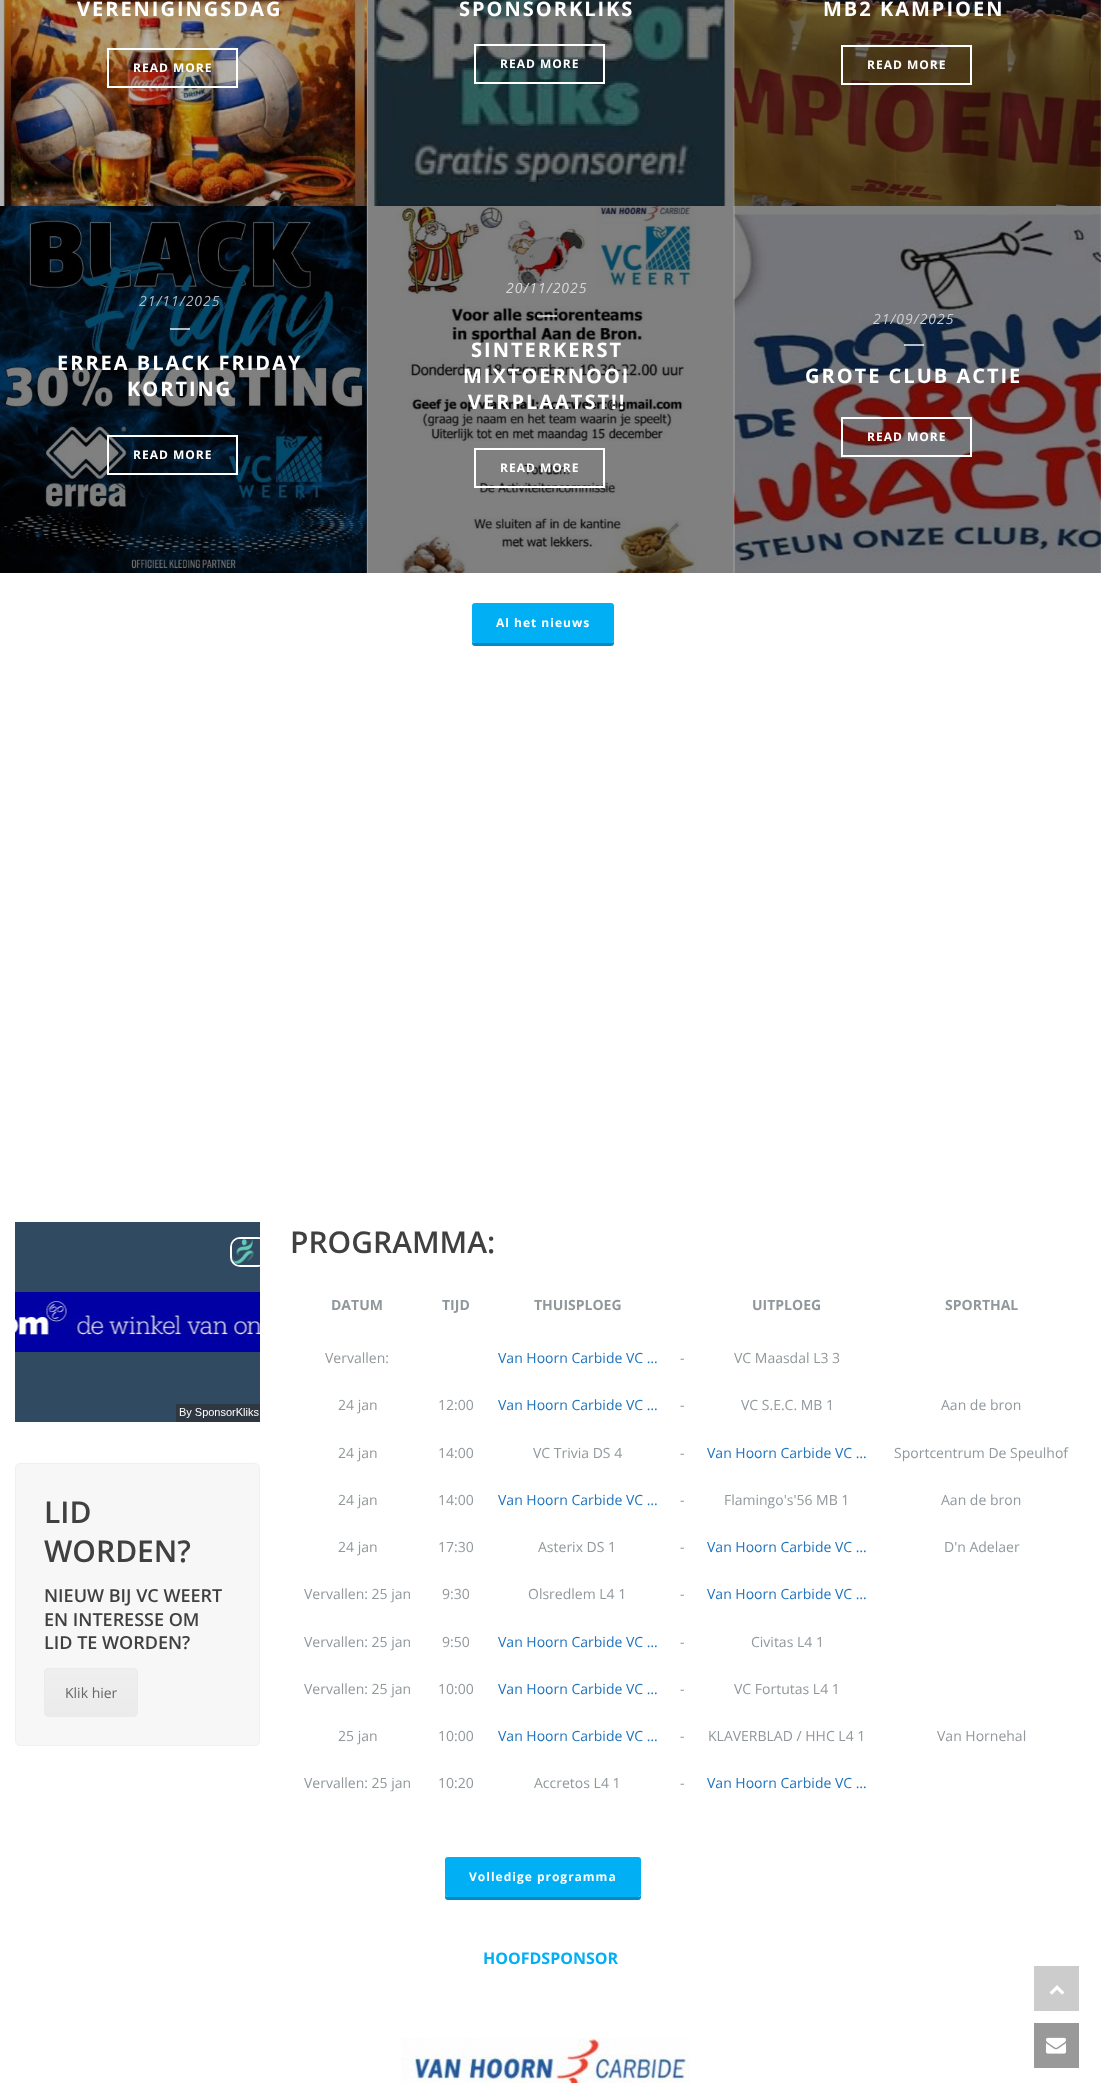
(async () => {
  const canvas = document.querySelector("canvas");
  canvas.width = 1101;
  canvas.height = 2083;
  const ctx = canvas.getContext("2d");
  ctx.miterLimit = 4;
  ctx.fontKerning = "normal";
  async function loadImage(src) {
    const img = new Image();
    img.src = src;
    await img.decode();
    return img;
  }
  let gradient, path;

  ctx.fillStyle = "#ffffff";
  ctx.fillRect(0, 0, 1101, 2083);
  ctx.drawImage(await loadImage("img/1.png"), 0, 0, 367, 206);
  ctx.strokeStyle = "#ffffff";
  ctx.lineWidth = 2;
  ctx.strokeRect(108, 49, 129, 38);
  ctx.drawImage(await loadImage("img/2.png"), 366, 0, 368, 206);
  ctx.strokeRect(475, 45, 129, 38);
  ctx.drawImage(await loadImage("img/3.png"), 733, 0, 368, 206);
  ctx.strokeRect(842, 46, 129, 38);
  ctx.drawImage(await loadImage("img/4.png"), 0, 206, 367, 367);
  ctx.fillStyle = "rgba(255, 255, 255, 0.7)";
  ctx.fillRect(170, 328, 20, 2);
  ctx.strokeRect(108, 436, 129, 38);
  ctx.drawImage(await loadImage("img/5.png"), 366, 206, 368, 367);
  ctx.fillRect(537, 315, 20, 2);
  ctx.strokeRect(475, 449, 129, 38);
  ctx.drawImage(await loadImage("img/6.png"), 733, 206, 368, 367);
  ctx.fillRect(904, 344, 20, 2);
  ctx.strokeRect(842, 418, 129, 38);
  ctx.fillStyle = "#008cc3";
  path = new Path2D("M472 640V643C472 645 473 646 475 646H611C613 646 614 645 614 643V640C614 642 613 643 611 643H475C473 643 472 642 472 640Z");
  ctx.fill(path);
  ctx.fillStyle = "#00aff4";
  ctx.beginPath();
  ctx.roundRect(472, 603, 142, 40, 3);
  ctx.fill();
  ctx.drawImage(await loadImage("img/7.png"), 15, 1222, 245, 200);
  ctx.fillStyle = "#f7f7f7";
  ctx.beginPath();
  ctx.roundRect(15.5, 1463.5, 244, 282, 4.5);
  ctx.fill();
  ctx.strokeStyle = "#f0f0f0";
  ctx.lineWidth = 1;
  ctx.stroke();
  ctx.fillStyle = "#ebebeb";
  ctx.beginPath();
  ctx.roundRect(44, 1668, 94, 49, 5);
  ctx.fill();
  ctx.save();
  ctx.beginPath();
  ctx.roundRect(44, 1668, 94, 49, 5);
  ctx.clip();
  gradient = ctx.createLinearGradient(91, 1669, 91, 1716);
  gradient.addColorStop(0, "rgba(255, 255, 255, 0.2)");
  gradient.addColorStop(1, "rgba(255, 255, 255, 0.01)");
  ctx.fillStyle = gradient;
  ctx.fillRect(44, 1669, 94, 44);
  ctx.restore();
  ctx.beginPath();
  ctx.roundRect(44.5, 1668.5, 93, 48, 4.5);
  ctx.strokeStyle = "#ebebeb";
  ctx.stroke();
  ctx.fillStyle = "#008cc3";
  path = new Path2D("M445 1894V1897C445 1899 446 1900 448 1900H638C640 1900 641 1899 641 1897V1894C641 1896 640 1897 638 1897H448C446 1897 445 1896 445 1894Z");
  ctx.fill(path);
  ctx.fillStyle = "#00aff4";
  ctx.beginPath();
  ctx.roundRect(445, 1857, 196, 40, 3);
  ctx.fill();
  ctx.drawImage(await loadImage("img/8.png"), 401, 2038, 289, 45);
  ctx.fillStyle = "#cccccc";
  ctx.fillRect(1034, 1966, 45, 45);
  ctx.drawImage(await loadImage("img/9.png"), 1049, 1985, 16, 10);
  ctx.fillStyle = "#999999";
  ctx.fillRect(1034, 2023, 45, 45);
  ctx.drawImage(await loadImage("img/10.png"), 1046, 2037, 20, 17);
  ctx.letterSpacing = "2px";
  ctx.font = "bold 20px Open Sans";
  ctx.fillStyle = "#ffffff";
  ctx.fillText("VERENIGINGSDAG", 77, 16);
  ctx.letterSpacing = "1px";
  ctx.font = "bold 12px Open Sans";
  ctx.fillText("READ MORE", 133, 72);
  ctx.letterSpacing = "2px";
  ctx.font = "bold 20px Open Sans";
  ctx.fillText("SPONSORKLIKS", 459, 16);
  ctx.letterSpacing = "1px";
  ctx.font = "bold 12px Open Sans";
  ctx.fillText("READ MORE", 500, 68);
  ctx.letterSpacing = "2px";
  ctx.font = "bold 20px Open Sans";
  ctx.fillText("MB2 KAMPIOEN", 823, 16);
  ctx.letterSpacing = "1px";
  ctx.font = "bold 12px Open Sans";
  ctx.fillText("READ MORE", 867, 69);
  ctx.font = "italic 14px Open Sans";
  ctx.fillStyle = "#b3bcc1";
  ctx.fillText("21/11/2025", 139, 306);
  ctx.letterSpacing = "2px";
  ctx.font = "bold 20px Open Sans";
  ctx.fillStyle = "#ffffff";
  ctx.fillText("ERREA BLACK FRIDAY", 57, 370);
  ctx.fillText("KORTING", 127, 396);
  ctx.letterSpacing = "1px";
  ctx.font = "bold 12px Open Sans";
  ctx.fillText("READ MORE", 133, 459);
  ctx.font = "italic 14px Open Sans";
  ctx.fillStyle = "#d8d8d8";
  ctx.fillText("20/11/2025", 506, 293);
  ctx.letterSpacing = "2px";
  ctx.font = "bold 20px Open Sans";
  ctx.fillStyle = "#ffffff";
  for (const [text, x, y] of [
    ["SINTERKERST", 471, 357],
    ["MIXTOERNOOI", 463, 383],
    ["VERPLAATST!!", 468, 409],
  ]) {
    ctx.fillText(text, x, y);
  }
  ctx.letterSpacing = "1px";
  ctx.font = "bold 12px Open Sans";
  ctx.fillText("READ MORE", 500, 472);
  ctx.font = "italic 14px Open Sans";
  ctx.fillStyle = "#ccced2";
  ctx.fillText("21/09/2025", 873, 324);
  ctx.letterSpacing = "2px";
  ctx.font = "bold 20px Open Sans";
  ctx.fillStyle = "#ffffff";
  ctx.fillText("GROTE CLUB ACTIE", 805, 383);
  ctx.letterSpacing = "1px";
  ctx.font = "bold 12px Open Sans";
  ctx.fillText("READ MORE", 867, 441);
  ctx.fillText("Al het nieuws", 496, 627);
  ctx.letterSpacing = "0px";
  ctx.font = "600 30px Open Sans";
  ctx.fillStyle = "#404040";
  ctx.fillText("LID", 44, 1523);
  ctx.fillText("WORDEN?", 44, 1562);
  ctx.font = "600 18px Open Sans";
  for (const [text, x, y] of [
    ["NIEUW BIJ VC WEERT", 44, 1602],
    ["EN INTERESSE OM", 44, 1626],
    ["LID TE WORDEN?", 44, 1649],
  ]) {
    ctx.fillText(text, x, y);
  }
  ctx.font = "14px Open Sans";
  ctx.fillStyle = "#666666";
  ctx.fillText("Klik hier", 65, 1698);
  ctx.font = "600 30px Open Sans";
  ctx.fillStyle = "#404040";
  ctx.fillText("PROGRAMMA:", 290, 1253);
  ctx.font = "bold 14px Open Sans";
  ctx.fillStyle = "#91989c";
  for (const [text, x, y] of [
    ["DATUM", 331, 1310],
    ["TIJD", 442, 1310],
    ["THUISPLOEG", 534, 1310],
    ["UITPLOEG", 752, 1310],
    ["SPORTHAL", 945, 1310],
  ]) {
    ctx.fillText(text, x, y);
  }
  ctx.font = "14px Open Sans";
  ctx.fillText("Vervallen:", 325, 1363);
  ctx.fillStyle = "#1e73be";
  ctx.fillText("Van Hoorn Carbide VC …", 498, 1363);
  ctx.fillStyle = "#91989c";
  for (const [text, x, y] of [
    ["-", 680, 1363],
    ["VC Maasdal L3 3", 734, 1363],
    ["24 jan", 338, 1410],
    ["12:00", 438, 1410],
  ]) {
    ctx.fillText(text, x, y);
  }
  ctx.fillStyle = "#1e73be";
  ctx.fillText("Van Hoorn Carbide VC …", 498, 1410);
  ctx.fillStyle = "#91989c";
  for (const [text, x, y] of [
    ["-", 680, 1410],
    ["VC S.E.C. MB 1", 741, 1410],
    ["Aan de bron", 941, 1410],
    ["24 jan", 338, 1458],
    ["14:00", 438, 1458],
    ["VC Trivia DS 4", 533, 1458],
    ["-", 680, 1458],
  ]) {
    ctx.fillText(text, x, y);
  }
  ctx.fillStyle = "#1e73be";
  ctx.fillText("Van Hoorn Carbide VC …", 707, 1458);
  ctx.fillStyle = "#91989c";
  for (const [text, x, y] of [
    ["Sportcentrum De Speulhof", 894, 1458],
    ["24 jan", 338, 1505],
    ["14:00", 438, 1505],
  ]) {
    ctx.fillText(text, x, y);
  }
  ctx.fillStyle = "#1e73be";
  ctx.fillText("Van Hoorn Carbide VC …", 498, 1505);
  ctx.fillStyle = "#91989c";
  for (const [text, x, y] of [
    ["-", 680, 1505],
    ["Flamingo's'56 MB 1", 724, 1505],
    ["Aan de bron", 941, 1505],
    ["24 jan", 338, 1552],
    ["17:30", 438, 1552],
    ["Asterix DS 1", 538, 1552],
    ["-", 680, 1552],
  ]) {
    ctx.fillText(text, x, y);
  }
  ctx.fillStyle = "#1e73be";
  ctx.fillText("Van Hoorn Carbide VC …", 707, 1552);
  ctx.fillStyle = "#91989c";
  for (const [text, x, y] of [
    ["D'n Adelaer", 944, 1552],
    ["Vervallen: 25 jan", 304, 1599],
    ["9:30", 442, 1599],
    ["Olsredlem L4 1", 528, 1599],
    ["-", 680, 1599],
  ]) {
    ctx.fillText(text, x, y);
  }
  ctx.fillStyle = "#1e73be";
  ctx.fillText("Van Hoorn Carbide VC …", 707, 1599);
  ctx.fillStyle = "#91989c";
  ctx.fillText("Vervallen: 25 jan", 304, 1647);
  ctx.fillText("9:50", 442, 1647);
  ctx.fillStyle = "#1e73be";
  ctx.fillText("Van Hoorn Carbide VC …", 498, 1647);
  ctx.fillStyle = "#91989c";
  for (const [text, x, y] of [
    ["-", 680, 1647],
    ["Civitas L4 1", 751, 1647],
    ["Vervallen: 25 jan", 304, 1694],
    ["10:00", 438, 1694],
  ]) {
    ctx.fillText(text, x, y);
  }
  ctx.fillStyle = "#1e73be";
  ctx.fillText("Van Hoorn Carbide VC …", 498, 1694);
  ctx.fillStyle = "#91989c";
  for (const [text, x, y] of [
    ["-", 680, 1694],
    ["VC Fortutas L4 1", 734, 1694],
    ["25 jan", 338, 1741],
    ["10:00", 438, 1741],
  ]) {
    ctx.fillText(text, x, y);
  }
  ctx.fillStyle = "#1e73be";
  ctx.fillText("Van Hoorn Carbide VC …", 498, 1741);
  ctx.fillStyle = "#91989c";
  for (const [text, x, y] of [
    ["-", 680, 1741],
    ["KLAVERBLAD / HHC L4 1", 708, 1741],
    ["Van Hornehal", 937, 1741],
    ["Vervallen: 25 jan", 304, 1788],
    ["10:20", 438, 1788],
    ["Accretos L4 1", 534, 1788],
    ["-", 680, 1788],
  ]) {
    ctx.fillText(text, x, y);
  }
  ctx.fillStyle = "#1e73be";
  ctx.fillText("Van Hoorn Carbide VC …", 707, 1788);
  ctx.letterSpacing = "1px";
  ctx.font = "bold 12px Open Sans";
  ctx.fillStyle = "#ffffff";
  ctx.fillText("Volledige programma", 469, 1881);
  ctx.letterSpacing = "0px";
  ctx.font = "bold 16px Open Sans";
  ctx.fillStyle = "#00aff4";
  ctx.fillText("HOOFDSPONSOR", 483, 1964);
})();
